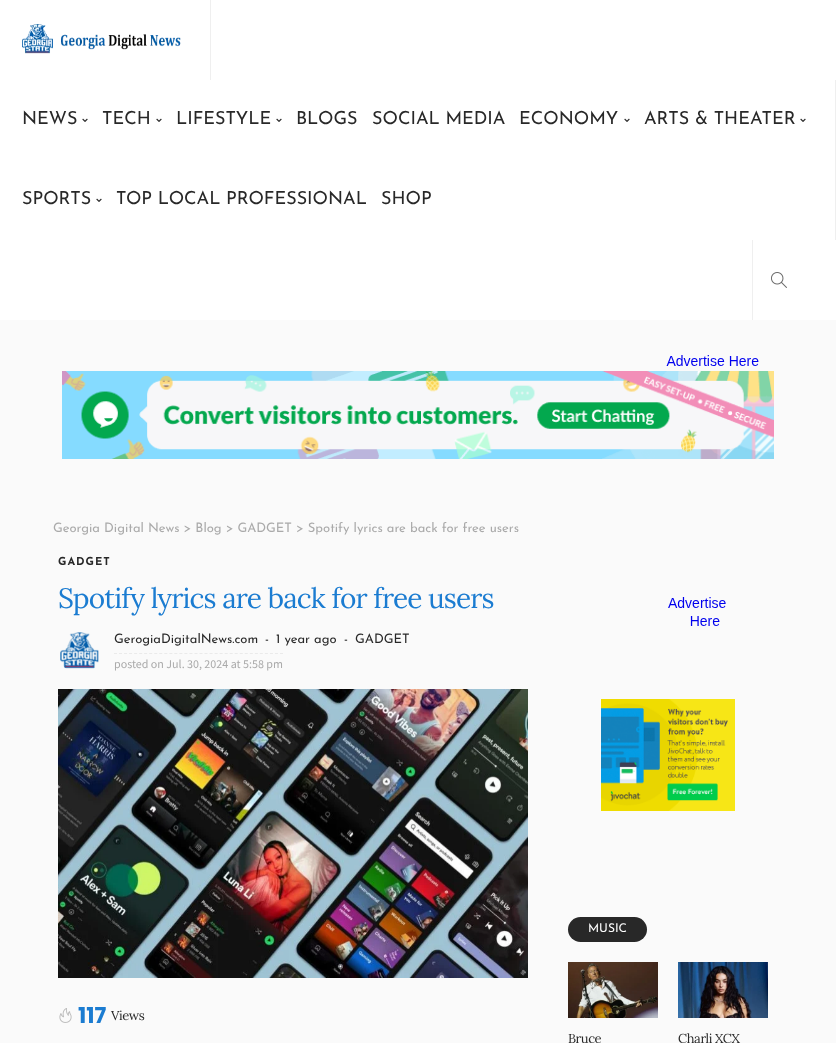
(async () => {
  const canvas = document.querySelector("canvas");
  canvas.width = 836;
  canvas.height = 1043;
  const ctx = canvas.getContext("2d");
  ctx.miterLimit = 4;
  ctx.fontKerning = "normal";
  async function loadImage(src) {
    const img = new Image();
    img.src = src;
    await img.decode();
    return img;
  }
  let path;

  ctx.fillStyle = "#fafafa";
  ctx.fillRect(0, 0, 836, 1043);
  ctx.fillStyle = "#ffffff";
  ctx.fillRect(0, 0, 836, 320);
  ctx.fillStyle = "#efefef";
  ctx.fillRect(210, 0, 1, 80);
  ctx.drawImage(await loadImage("img/1.png"), 22, 24, 159, 30);
  ctx.fillRect(835, 80, 1, 160);
  ctx.drawImage(await loadImage("img/2.png"), 82, 118, 6, 4);
  ctx.drawImage(await loadImage("img/2.png"), 156, 118, 6, 4);
  ctx.drawImage(await loadImage("img/2.png"), 276, 118, 6, 4);
  ctx.drawImage(await loadImage("img/2.png"), 624, 118, 6, 4);
  ctx.drawImage(await loadImage("img/2.png"), 800, 118, 6, 4);
  ctx.drawImage(await loadImage("img/2.png"), 96, 198, 6, 4);
  ctx.fillRect(752, 240, 1, 80);
  ctx.drawImage(await loadImage("img/3.png"), 771, 272, 16, 16);
  ctx.drawImage(await loadImage("img/4.png"), 62, 355, 712, 104);
  ctx.drawImage(await loadImage("img/5.png"), 60, 632, 39, 37);
  path = new Path2D("M114 653.5H283");
  ctx.strokeStyle = "#eaeaea";
  ctx.setLineDash([3, 2.03]);
  ctx.stroke(path);
  ctx.drawImage(await loadImage("img/6.png"), 58, 689, 470, 289);
  ctx.drawImage(await loadImage("img/7.png"), 59, 1008, 13, 15);
  ctx.drawImage(await loadImage("img/8.png"), 601, 597, 134, 214);
  ctx.fillStyle = "#282828";
  ctx.beginPath();
  ctx.roundRect(568, 917, 79, 25, 12.5);
  ctx.fill();
  ctx.drawImage(await loadImage("img/9.png"), 568, 962, 90, 56);
  ctx.drawImage(await loadImage("img/10.png"), 678, 962, 90, 56);
  ctx.font = "18px Josefin Sans";
  for (const [text, x, y] of [
    ["NEWS", 22, 124],
    ["TECH", 102, 124],
    ["LIFESTYLE", 176, 124],
    ["BLOGS", 296, 124],
    ["SOCIAL MEDIA", 372, 124],
    ["ECONOMY", 519, 124],
    ["ARTS & THEATER", 644, 124],
    ["SPORTS", 22, 204],
    ["TOP LOCAL PROFESSIONAL", 116, 204],
    ["SHOP", 381, 204],
  ]) {
    ctx.fillText(text, x, y);
  }
  ctx.font = "13px Josefin Sans";
  ctx.fillStyle = "#aaaaaa";
  ctx.fillText("Georgia Digital News > Blog > GADGET > Spotify lyrics are back for free users", 53, 532);
  ctx.letterSpacing = "1px";
  ctx.font = "bold 11px Josefin Sans";
  ctx.fillStyle = "#282828";
  ctx.fillText("GADGET", 58, 565);
  ctx.letterSpacing = "-0.85px";
  ctx.font = "28px Lora";
  ctx.fillStyle = "#1b7cd1";
  ctx.fillText("Spotify lyrics are back for free users", 58, 608);
  ctx.letterSpacing = "0px";
  ctx.font = "13px Josefin Sans";
  ctx.fillStyle = "#282828";
  for (const [text, x, y] of [
    ["GerogiaDigitalNews.com", 114, 643],
    ["-", 265, 643],
    ["1 year ago", 276, 643],
    ["-", 344, 643],
    ["GADGET", 355, 643],
  ]) {
    ctx.fillText(text, x, y);
  }
  ctx.font = "12px Source Sans Pro";
  ctx.fillStyle = "#aaaaaa";
  ctx.fillText("posted on Jul. 30, 2024 at 5:58 pm", 114, 668);
  ctx.font = "bold 22px Poppins";
  ctx.fillStyle = "#1b7cd1";
  ctx.fillText("117", 78, 1023);
  ctx.letterSpacing = "-0.4px";
  ctx.font = "13px Lora";
  ctx.fillStyle = "#282828";
  ctx.fillText("Views", 111, 1020);
  ctx.letterSpacing = "0px";
  ctx.font = "12px Josefin Sans";
  ctx.fillStyle = "#ffffff";
  ctx.fillText("MUSIC", 588, 932);
  ctx.letterSpacing = "-0.4px";
  ctx.font = "13px Lora";
  ctx.fillStyle = "#282828";
  ctx.fillText("Bruce", 568, 1043);
  ctx.fillText("Charli XCX", 678, 1043);
})();
